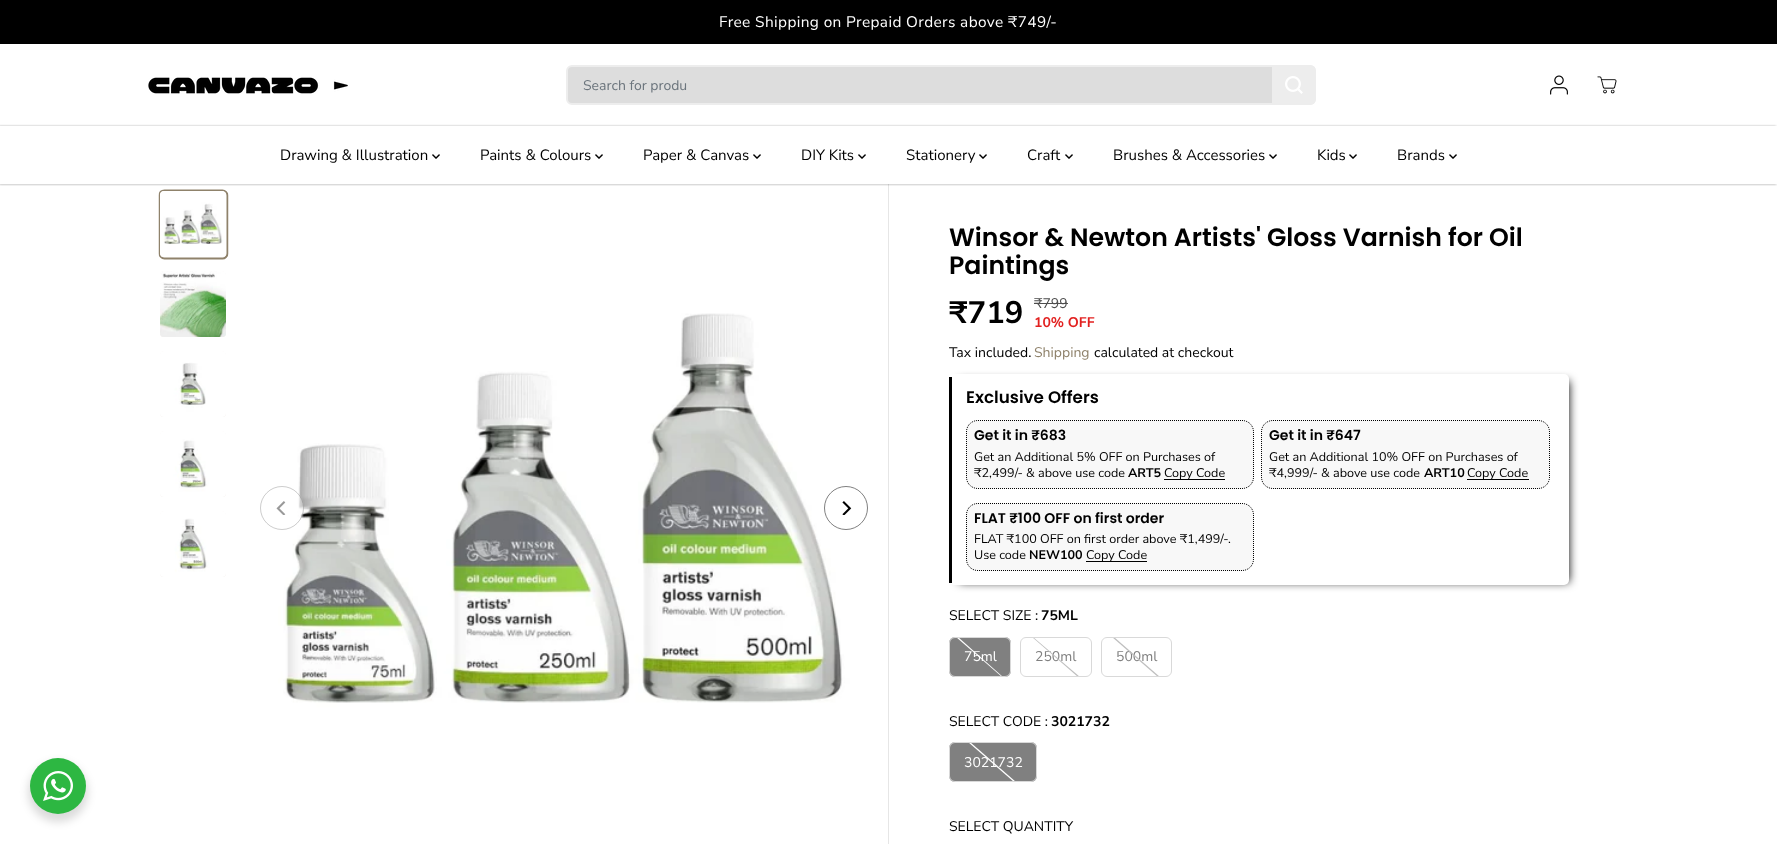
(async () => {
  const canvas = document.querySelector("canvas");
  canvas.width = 1777;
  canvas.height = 844;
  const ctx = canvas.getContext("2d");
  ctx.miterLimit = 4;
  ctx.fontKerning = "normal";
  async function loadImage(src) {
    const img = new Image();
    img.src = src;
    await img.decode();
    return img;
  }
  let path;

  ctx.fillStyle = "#ffffff";
  ctx.fillRect(0, 0, 1777, 844);
  ctx.fillStyle = "rgba(0, 0, 0, 0.14)";
  ctx.filter = "blur(4px)";
  ctx.beginPath();
  ctx.roundRect(28, 762, 60, 60, 30);
  ctx.fill();
  ctx.filter = "none";
  ctx.fillStyle = "#2db742";
  ctx.beginPath();
  ctx.arc(58, 786, 28, 0, Math.PI * 2);
  ctx.fill();
  ctx.drawImage(await loadImage("img/1.png"), 43, 771, 30, 30);
  ctx.fillStyle = "#e6e6e6";
  ctx.fillRect(888, 184, 1, 660);
  ctx.save();
  path = new Path2D("M228.5 184.5V684.5H158.5V184.5Z");
  ctx.clip(path);
  path = new Path2D("M227.5 195.5V253.5C227.5 256 225 258.5 222.5 258.5H164.5C161.5 258.5 159.5 256 159.5 253.5V195.5C159.5 192.5 161.5 190.5 164.5 190.5H222.5C225 190.5 227.5 192.5 227.5 195.5Z");
  ctx.strokeStyle = "#8f826b";
  ctx.lineWidth = 2;
  ctx.stroke(path);
  ctx.restore();
  ctx.drawImage(await loadImage("img/12.png"), 240, 184, 648, 648);
  ctx.save();
  ctx.beginPath();
  ctx.rect(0, 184, 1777, 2);
  ctx.clip();
  ctx.fillStyle = "rgba(0, 0, 0, 0.05)";
  ctx.filter = "blur(1px)";
  ctx.beginPath();
  ctx.rect(0, 46, 1777, 140);
  ctx.fill();
  ctx.filter = "none";
  ctx.restore();
  ctx.fillStyle = "#000000";
  ctx.fillRect(0, 0, 1777, 44);
  ctx.drawImage(await loadImage("img/2.png"), 148, 77, 200, 17);
  ctx.fillStyle = "#dddddd";
  ctx.beginPath();
  ctx.roundRect(567, 66, 748, 38, 5);
  ctx.fill();
  ctx.strokeStyle = "#ededed";
  ctx.lineWidth = 2;
  ctx.stroke();
  ctx.fillStyle = "#ededed";
  ctx.beginPath();
  ctx.roundRect(1272, 65, 44, 40, [0, 6, 6, 0]);
  ctx.fill();
  ctx.drawImage(await loadImage("img/3.png"), 1285, 76, 18, 18);
  ctx.drawImage(await loadImage("img/4.png"), 1550, 75, 18, 20);
  ctx.drawImage(await loadImage("img/5.png"), 1597, 76, 20, 18);
  ctx.save();
  path = new Path2D("M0 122H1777V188H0ZM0 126H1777V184H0Z");
  ctx.clip(path, "evenodd");
  ctx.fillStyle = "rgba(0, 0, 0, 0.3)";
  ctx.filter = "blur(1px)";
  ctx.beginPath();
  ctx.rect(-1, 126, 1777, 58);
  ctx.fill();
  ctx.filter = "none";
  ctx.restore();
  ctx.drawImage(await loadImage("img/6.png"), 432, 154, 8, 5);
  ctx.drawImage(await loadImage("img/6.png"), 595, 154, 8, 5);
  ctx.drawImage(await loadImage("img/6.png"), 753, 154, 8, 5);
  ctx.drawImage(await loadImage("img/6.png"), 858, 154, 8, 5);
  ctx.drawImage(await loadImage("img/6.png"), 979, 154, 8, 5);
  ctx.drawImage(await loadImage("img/6.png"), 1065, 154, 8, 5);
  ctx.drawImage(await loadImage("img/6.png"), 1269, 154, 8, 5);
  ctx.drawImage(await loadImage("img/6.png"), 1349, 154, 8, 5);
  ctx.drawImage(await loadImage("img/6.png"), 1449, 154, 8, 5);
  ctx.fillStyle = "#f3efec";
  path = new Path2D("M224 257H162C161 256 160 255 160 253V195C160 193 162 191 164 191H222C224 191 225 193 226 194V255Z");
  ctx.fill(path);
  ctx.drawImage(await loadImage("img/7.png"), 160, 191, 66, 66);
  path = new Path2D("M224 337H162C161 336 160 335 160 333V275C160 273 162 271 164 271H222C224 271 225 273 226 274V335Z");
  ctx.fill(path);
  ctx.drawImage(await loadImage("img/8.png"), 160, 271, 66, 66);
  path = new Path2D("M224 417H162C161 416 160 415 160 413V355C160 353 162 351 164 351H222C224 351 225 353 226 354V415Z");
  ctx.fill(path);
  ctx.drawImage(await loadImage("img/9.png"), 160, 351, 66, 66);
  path = new Path2D("M224 497H162C161 496 160 495 160 493V435C160 433 162 431 164 431H222C224 431 225 433 226 434V495Z");
  ctx.fill(path);
  ctx.drawImage(await loadImage("img/10.png"), 160, 431, 66, 66);
  path = new Path2D("M224 577H162C161 576 160 575 160 573V515C160 513 162 511 164 511H222C224 511 225 513 226 514V575Z");
  ctx.fill(path);
  ctx.drawImage(await loadImage("img/11.png"), 160, 511, 66, 66);
  ctx.fillStyle = "rgba(255, 255, 255, 0.4)";
  ctx.beginPath();
  ctx.arc(282, 508, 22, 0, Math.PI * 2);
  ctx.fill();
  ctx.beginPath();
  ctx.arc(282, 508, 21.5, 0, Math.PI * 2);
  ctx.strokeStyle = "rgba(0, 0, 0, 0.2)";
  ctx.lineWidth = 1;
  ctx.stroke();
  ctx.drawImage(await loadImage("img/13.png"), 276, 501, 10, 14);
  ctx.beginPath();
  ctx.arc(846, 508, 21.5, 0, Math.PI * 2);
  ctx.strokeStyle = "#808080";
  ctx.stroke();
  ctx.drawImage(await loadImage("img/14.png"), 842, 501, 10, 14);
  ctx.fillStyle = "#4d4d4d";
  ctx.fillRect(1034, 303, 34, 1);
  ctx.fillStyle = "#000000";
  ctx.filter = "blur(5px)";
  ctx.beginPath();
  ctx.rect(959, 381, 610, 201);
  ctx.fill();
  ctx.filter = "none";
  ctx.fillStyle = "#ffffff";
  ctx.beginPath();
  ctx.roundRect(949, 374, 620, 211, 5);
  ctx.fill();
  ctx.fillStyle = "#000000";
  ctx.fillRect(949, 377, 3, 206);
  ctx.fillStyle = "#f8f8f8";
  ctx.beginPath();
  ctx.roundRect(966, 420, 288, 69, 12);
  ctx.fill();
  path = new Path2D("M978 420.5H1242C1248.5 420.5 1253.5 425.5 1253.5 432V477C1253.5 483.5 1248.5 488.5 1242 488.5H978C971.5 488.5 966.5 483.5 966.5 477V432C966.5 425.5 971.5 420.5 978 420.5Z");
  ctx.strokeStyle = "#000000";
  ctx.setLineDash([1, 1]);
  ctx.stroke(path);
  ctx.fillStyle = "#000000";
  ctx.fillRect(1164, 479, 61, 1);
  ctx.fillStyle = "#f8f8f8";
  ctx.beginPath();
  ctx.roundRect(1261, 420, 289, 69, 12);
  ctx.fill();
  path = new Path2D("M1273 420.5H1538C1544.5 420.5 1549.5 425.5 1549.5 432V477C1549.5 483.5 1544.5 488.5 1538 488.5H1273C1266.5 488.5 1261.5 483.5 1261.5 477V432C1261.5 425.5 1266.5 420.5 1273 420.5Z");
  ctx.stroke(path);
  ctx.fillStyle = "#000000";
  ctx.fillRect(1467, 479, 62, 1);
  ctx.fillStyle = "#f8f8f8";
  ctx.beginPath();
  ctx.roundRect(966, 503, 288, 68, 12);
  ctx.fill();
  path = new Path2D("M978 503.5H1242C1248.5 503.5 1253.5 508.5 1253.5 515V559C1253.5 565.5 1248.5 570.5 1242 570.5H978C971.5 570.5 966.5 565.5 966.5 559V515C966.5 508.5 971.5 503.5 978 503.5Z");
  ctx.stroke(path);
  ctx.fillStyle = "#000000";
  ctx.fillRect(1086, 561, 61, 1);
  ctx.fillStyle = "#808080";
  ctx.beginPath();
  ctx.roundRect(949, 637, 62, 40, 6);
  ctx.fill();
  ctx.fillStyle = "#ffffff";
  path = new Path2D("M1002 677L956 637H958L1003 677Z");
  ctx.fill(path);
  ctx.beginPath();
  ctx.roundRect(949.5, 637.5, 61, 39, 5.5);
  ctx.strokeStyle = "#d9d9d9";
  ctx.setLineDash([]);
  ctx.stroke();
  ctx.fillStyle = "#808080";
  ctx.beginPath();
  ctx.roundRect(949, 742, 88, 40, 6);
  ctx.fill();
  ctx.fillStyle = "#ffffff";
  path = new Path2D("M1014 782L968 742H970L1016 782Z");
  ctx.fill(path);
  ctx.beginPath();
  ctx.roundRect(949.5, 742.5, 87, 39, 5.5);
  ctx.stroke();
  ctx.letterSpacing = "0.4px";
  ctx.font = "15.4px Nunito Sans";
  ctx.fillText("Free Shipping on Prepaid Orders above ₹749/-", 719, 27);
  ctx.letterSpacing = "0px";
  ctx.font = "14px Nunito Sans";
  ctx.fillStyle = "#6c757d";
  ctx.fillText("Search for produ", 583, 90);
  ctx.font = "15px Nunito Sans";
  ctx.fillStyle = "#000000";
  for (const [text, x, y] of [
    ["Drawing & Illustration", 280, 160],
    ["Paints & Colours", 480, 160],
    ["Paper & Canvas", 643, 160],
    ["DIY Kits", 801, 160],
    ["Stationery", 906, 160],
    ["Craft", 1027, 160],
    ["Brushes & Accessories", 1113, 160],
    ["Kids", 1317, 160],
    ["Brands", 1397, 160],
  ]) {
    ctx.fillText(text, x, y);
  }
  ctx.font = "600 25.2px Poppins";
  ctx.fillText("Winsor & Newton Artists' Gloss Varnish for Oil", 949, 246);
  ctx.fillText("Paintings", 949, 274);
  ctx.font = "bold 31px Nunito Sans";
  ctx.fillText("₹719", 949, 323);
  ctx.font = "14px Nunito Sans";
  ctx.fillStyle = "#4d4d4d";
  ctx.fillText("₹799", 1034, 308);
  ctx.font = "bold 14px Nunito Sans";
  ctx.fillStyle = "#e22120";
  ctx.fillText("10% OFF", 1034, 327);
  ctx.font = "14px Nunito Sans";
  ctx.fillStyle = "#000000";
  ctx.fillText("Tax included.", 949, 357);
  ctx.fillStyle = "#8f826b";
  ctx.fillText("Shipping", 1034, 357);
  ctx.fillStyle = "#000000";
  ctx.fillText("calculated at checkout", 1094, 357);
  ctx.font = "600 16.75px Poppins";
  ctx.fillText("Exclusive Offers", 966, 403);
  ctx.font = "600 14px Poppins";
  ctx.fillText("Get it in ₹683", 974, 440);
  ctx.font = "12.6px Nunito Sans";
  ctx.fillText("Get an Additional 5% OFF on Purchases of", 974, 461);
  ctx.fillText("₹2,499/- & above use code", 974, 477);
  ctx.font = "bold 12.6px Nunito Sans";
  ctx.fillText("ART5", 1128, 477);
  ctx.font = "12.6px Nunito Sans";
  ctx.fillText("Copy Code", 1164, 477);
  ctx.font = "600 14px Poppins";
  ctx.fillText("Get it in ₹647", 1269, 440);
  ctx.font = "12.6px Nunito Sans";
  ctx.fillText("Get an Additional 10% OFF on Purchases of", 1269, 461);
  ctx.fillText("₹4,999/- & above use code", 1269, 477);
  ctx.font = "bold 12.6px Nunito Sans";
  ctx.fillText("ART10", 1424, 477);
  ctx.font = "12.6px Nunito Sans";
  ctx.fillText("Copy Code", 1467, 477);
  ctx.font = "600 14px Poppins";
  ctx.fillText("FLAT ₹100 OFF on first order", 974, 523);
  ctx.font = "12.6px Nunito Sans";
  ctx.fillText("FLAT ₹100 OFF on first order above ₹1,499/-.", 974, 543);
  ctx.fillText("Use code", 974, 559);
  ctx.font = "bold 12.6px Nunito Sans";
  ctx.fillText("NEW100", 1029, 559);
  ctx.font = "12.6px Nunito Sans";
  ctx.fillText("Copy Code", 1086, 559);
  ctx.font = "14px Nunito Sans";
  ctx.fillText("SELECT SIZE :", 949, 620);
  ctx.font = "bold 14px Nunito Sans";
  ctx.fillText("75ML", 1041, 620);
  ctx.font = "14px Nunito Sans";
  ctx.fillStyle = "#ffffff";
  ctx.fillText("75ml", 964, 661);
  ctx.fillStyle = "#808080";
  ctx.fillText("250ml", 1035, 661);
  ctx.fillStyle = "#bfbfbf";
  path = new Path2D("M1078 677L1032 637H1033L1080 677Z");
  ctx.fill(path);
  ctx.beginPath();
  ctx.roundRect(1020.5, 637.5, 71, 39, 5.5);
  ctx.stroke();
  ctx.fillStyle = "#808080";
  ctx.fillText("500ml", 1116, 661);
  ctx.fillStyle = "#bfbfbf";
  path = new Path2D("M1158 677L1112 637H1114L1160 677Z");
  ctx.fill(path);
  ctx.beginPath();
  ctx.roundRect(1101.5, 637.5, 70, 39, 5.5);
  ctx.stroke();
  ctx.fillStyle = "#000000";
  ctx.fillText("SELECT CODE :", 949, 726);
  ctx.font = "bold 14px Nunito Sans";
  ctx.fillText("3021732", 1051, 726);
  ctx.font = "14px Nunito Sans";
  ctx.fillStyle = "#ffffff";
  ctx.fillText("3021732", 964, 767);
  ctx.fillStyle = "#000000";
  ctx.fillText("SELECT QUANTITY", 949, 831);
})();
